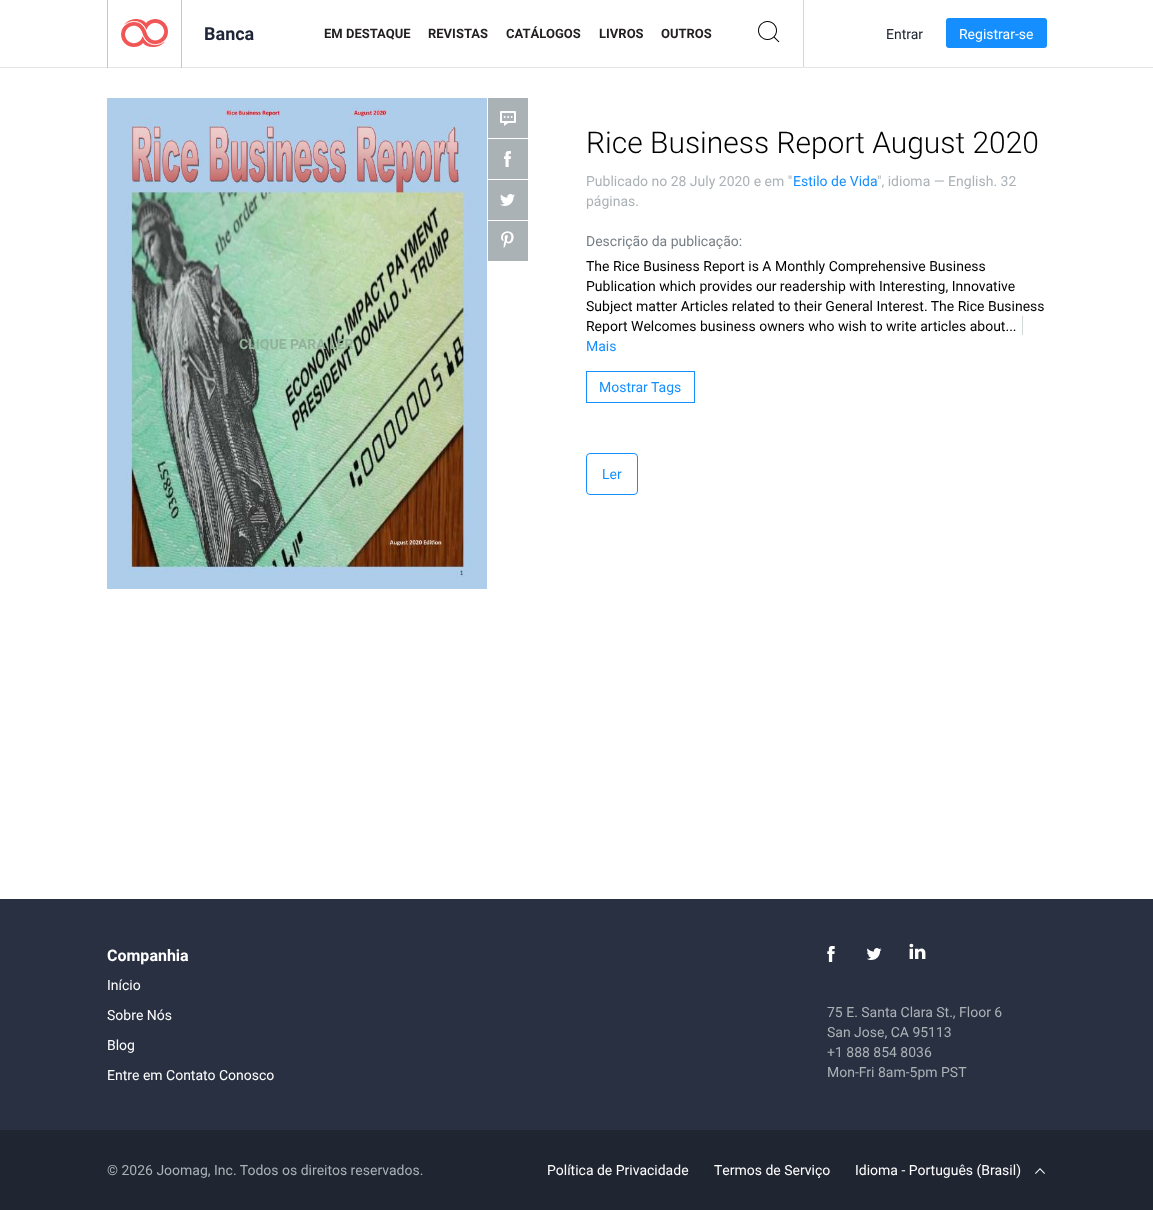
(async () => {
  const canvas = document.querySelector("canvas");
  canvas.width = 1153;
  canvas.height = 1210;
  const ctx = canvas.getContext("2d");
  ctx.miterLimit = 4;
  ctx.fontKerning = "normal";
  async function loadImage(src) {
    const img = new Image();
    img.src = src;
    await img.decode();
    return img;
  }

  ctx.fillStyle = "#ffffff";
  ctx.fillRect(0, 0, 1153, 1210);
  for (const [x, y, w, h, color] of [
    [0, 67, 1153, 1, "#e5e5e5"],
    [181, 0, 1, 68, "#c6c6c6"],
    [107, 0, 1, 68, "#c6c6c6"],
  ]) {
    ctx.fillStyle = color;
    ctx.fillRect(x, y, w, h);
  }
  ctx.drawImage(await loadImage("img/1.png"), 121, 19, 47, 28);
  ctx.fillStyle = "#d2d7d9";
  ctx.fillRect(803, 0, 1, 67);
  ctx.drawImage(await loadImage("img/2.png"), 758, 21, 22, 22);
  ctx.fillStyle = "#158fff";
  ctx.beginPath();
  ctx.roundRect(946, 18, 101, 30, 3);
  ctx.fill();
  ctx.fillStyle = "#abb2b6";
  ctx.fillRect(488, 98, 40, 40);
  ctx.drawImage(await loadImage("img/3.png"), 500, 111, 16, 15);
  ctx.fillRect(488, 139, 40, 40);
  ctx.drawImage(await loadImage("img/4.png"), 504, 151, 7, 16);
  ctx.fillRect(488, 180, 40, 40);
  ctx.drawImage(await loadImage("img/5.png"), 500, 194, 15, 12);
  ctx.fillRect(488, 221, 40, 40);
  ctx.drawImage(await loadImage("img/6.png"), 501, 231, 13, 17);
  ctx.drawImage(await loadImage("img/7.png"), 107, 98, 380, 491);
  ctx.fillStyle = "#d2d7d9";
  ctx.fillRect(1022, 316, 1, 19);
  ctx.strokeStyle = "#158fff";
  ctx.strokeRect(586.5, 371.5, 108, 31);
  ctx.beginPath();
  ctx.roundRect(586.5, 453.5, 51, 41, 3.5);
  ctx.stroke();
  ctx.fillStyle = "#293042";
  ctx.fillRect(0, 899, 1153, 231);
  ctx.drawImage(await loadImage("img/8.png"), 827, 946, 8, 16);
  ctx.drawImage(await loadImage("img/9.png"), 866, 948, 16, 12);
  ctx.drawImage(await loadImage("img/10.png"), 909, 943, 17, 16);
  ctx.fillStyle = "#202532";
  ctx.fillRect(0, 1130, 1153, 80);
  ctx.drawImage(await loadImage("img/11.png"), 1035, 1168, 10, 6);
  ctx.font = "bold 18px Roboto";
  ctx.fillStyle = "#1e2638";
  ctx.fillText("Banca", 204, 40);
  ctx.font = "bold 13px Roboto";
  ctx.fillStyle = "#231f20";
  for (const [text, x, y] of [
    ["EM DESTAQUE", 324, 38],
    ["REVISTAS", 428, 38],
    ["CATÁLOGOS", 506, 38],
    ["LIVROS", 599, 38],
    ["OUTROS", 661, 38],
  ]) {
    ctx.fillText(text, x, y);
  }
  ctx.font = "14px Roboto";
  ctx.fillStyle = "#202532";
  ctx.fillText("Entrar", 886, 39);
  ctx.fillStyle = "#ffffff";
  ctx.fillText("Registrar-se", 959, 39);
  ctx.font = "bold 14px Roboto";
  ctx.fillStyle = "#92b39a";
  ctx.fillText("CLIQUE PARA LER", 239, 349);
  ctx.font = "300 30px Roboto";
  ctx.fillStyle = "#000000";
  ctx.fillText("Rice Business Report August 2020", 586, 153);
  ctx.font = "14px Roboto";
  ctx.fillStyle = "#abb2b6";
  ctx.fillText("Publicado no 28 July 2020 e em \"", 586, 186);
  ctx.fillStyle = "#158fff";
  ctx.fillText("Estilo de Vida", 793, 186);
  ctx.fillStyle = "#abb2b6";
  ctx.fillText("\", idioma — English. 32", 877, 186);
  ctx.fillText("páginas.", 586, 206);
  ctx.fillStyle = "#777f86";
  ctx.fillText("Descrição da publicação:", 586, 246);
  ctx.fillStyle = "#000000";
  for (const [text, x, y] of [
    ["The Rice Business Report is A Monthly Comprehensive Business", 586, 271],
    ["Publication which provides our readership with Interesting, Innovative", 586, 291],
    ["Subject matter Articles related to their General Interest. The Rice Business", 586, 311],
    ["Report Welcomes business owners who wish to write articles about...", 586, 331],
  ]) {
    ctx.fillText(text, x, y);
  }
  ctx.fillStyle = "#158fff";
  for (const [text, x, y] of [
    ["Mais", 586, 351],
    ["Mostrar Tags", 599, 392],
    ["Ler", 602, 479],
  ]) {
    ctx.fillText(text, x, y);
  }
  ctx.font = "bold 16px Roboto";
  ctx.fillStyle = "#ffffff";
  ctx.fillText("Companhia", 107, 961);
  ctx.font = "14px Roboto";
  for (const [text, x, y] of [
    ["Início", 107, 990],
    ["Sobre Nós", 107, 1020],
    ["Blog", 107, 1050],
    ["Entre em Contato Conosco", 107, 1080],
  ]) {
    ctx.fillText(text, x, y);
  }
  ctx.fillStyle = "#abb2b6";
  for (const [text, x, y] of [
    ["75 E. Santa Clara St., Floor 6", 827, 1017],
    ["San Jose, CA 95113", 827, 1037],
    ["+1 888 854 8036", 827, 1057],
    ["Mon-Fri 8am-5pm PST", 827, 1077],
    ["© 2026 Joomag, Inc. Todos os direitos reservados.", 107, 1175],
  ]) {
    ctx.fillText(text, x, y);
  }
  ctx.fillStyle = "#ffffff";
  for (const [text, x, y] of [
    ["Política de Privacidade", 547, 1175],
    ["Termos de Serviço", 714, 1175],
    ["Idioma - Português (Brasil)", 855, 1175],
  ]) {
    ctx.fillText(text, x, y);
  }
})();
